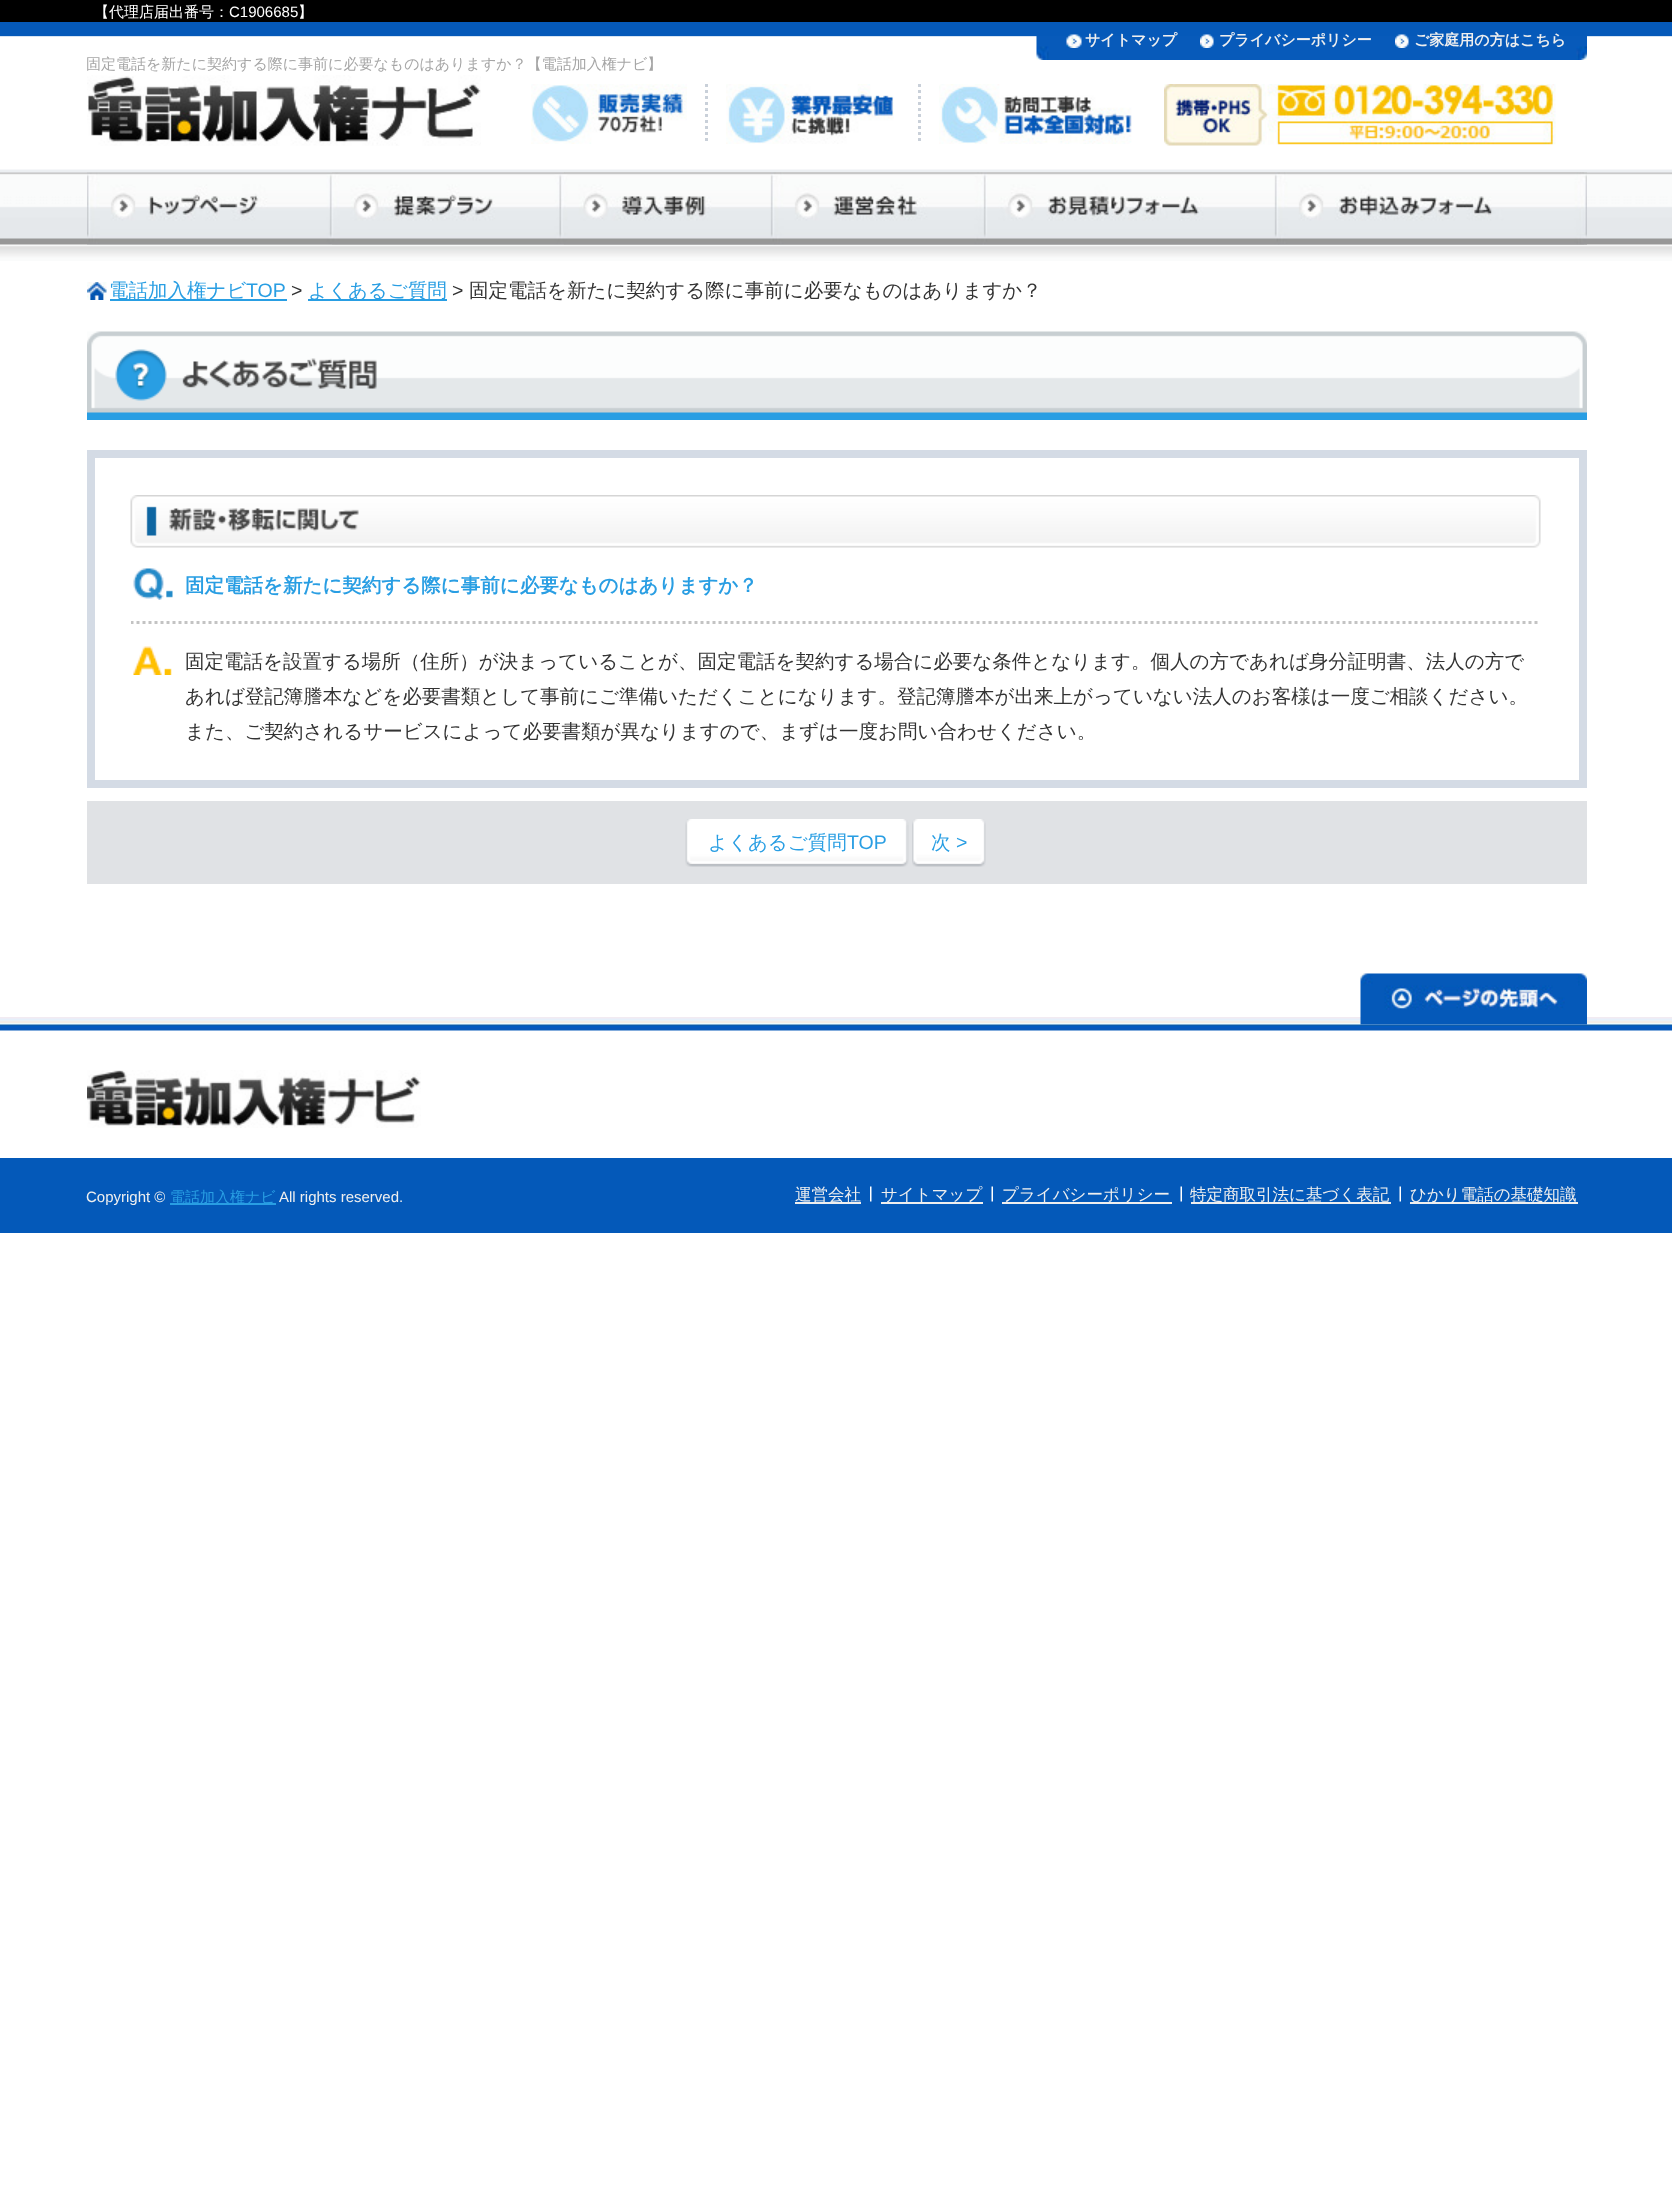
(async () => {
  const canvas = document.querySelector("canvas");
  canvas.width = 1672;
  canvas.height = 2189;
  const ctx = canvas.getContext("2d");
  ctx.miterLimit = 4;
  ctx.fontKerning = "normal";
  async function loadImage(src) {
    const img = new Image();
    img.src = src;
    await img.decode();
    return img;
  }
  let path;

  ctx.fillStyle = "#ffffff";
  ctx.fillRect(0, 0, 1672, 2189);
  ctx.fillStyle = "#000000";
  ctx.fillRect(0, 0, 1672, 22);
  ctx.drawImage(await loadImage("img/1.png"), 0, 36, 1672, 225);
  ctx.fillStyle = "#0559b9";
  ctx.fillRect(0, 22, 1672, 14);
  ctx.drawImage(await loadImage("img/2.png"), 1036, 36, 551, 24);
  ctx.drawImage(await loadImage("img/3.png"), 1066, 34, 16, 14);
  ctx.drawImage(await loadImage("img/4.png"), 1200, 34, 14, 14);
  ctx.drawImage(await loadImage("img/5.png"), 1395, 34, 14, 14);
  ctx.drawImage(await loadImage("img/6.png"), 87, 75, 394, 71);
  ctx.drawImage(await loadImage("img/7.png"), 531, 84, 156, 60);
  path = new Path2D("M706.5 84V144");
  ctx.strokeStyle = "#c9d0d9";
  ctx.lineWidth = 3;
  ctx.setLineDash([3, 3]);
  ctx.stroke(path);
  ctx.drawImage(await loadImage("img/8.png"), 726, 84, 168, 60);
  path = new Path2D("M919.5 84V144");
  ctx.stroke(path);
  ctx.drawImage(await loadImage("img/9.png"), 939, 84, 193, 60);
  ctx.drawImage(await loadImage("img/10.png"), 1164, 84, 104, 62);
  ctx.drawImage(await loadImage("img/11.png"), 1267, 84, 289, 61);
  ctx.drawImage(await loadImage("img/12.png"), 87, 172, 1500, 73);
  ctx.drawImage(await loadImage("img/13.png"), 332, 172, 1255, 73);
  ctx.drawImage(await loadImage("img/14.png"), 564, 172, 1020, 73);
  ctx.drawImage(await loadImage("img/15.png"), 805, 196, 112, 19);
  ctx.drawImage(await loadImage("img/16.png"), 87, 282, 20, 18);
  ctx.fillStyle = "#299ee3";
  ctx.fillRect(110, 299, 177, 2);
  ctx.fillRect(308, 299, 139, 2);
  ctx.drawImage(await loadImage("img/17.png"), 87, 331, 1500, 89);
  ctx.strokeStyle = "#d4dbe5";
  ctx.lineWidth = 8;
  ctx.setLineDash([]);
  ctx.strokeRect(91, 454, 1492, 330);
  ctx.drawImage(await loadImage("img/18.png"), 130, 495, 1411, 53);
  ctx.save();
  ctx.beginPath();
  ctx.rect(131, 548, 1410, 213);
  ctx.clip();
  path = new Path2D("M130.5 622.5H1540.5");
  ctx.strokeStyle = "#c3c3c3";
  ctx.lineWidth = 3;
  ctx.setLineDash([3, 3]);
  ctx.stroke(path);
  ctx.restore();
  ctx.drawImage(await loadImage("img/19.png"), 133, 568, 40, 32);
  ctx.drawImage(await loadImage("img/20.png"), 133, 646, 39, 29);
  ctx.fillStyle = "#e0e2e5";
  ctx.fillRect(87, 801, 1500, 83);
  ctx.drawImage(await loadImage("img/21.png"), 685, 819, 224, 48);
  ctx.drawImage(await loadImage("img/22.png"), 912, 819, 74, 48);
  ctx.drawImage(await loadImage("img/23.png"), 0, 1017, 1672, 14);
  ctx.drawImage(await loadImage("img/24.png"), 1360, 973, 227, 52);
  ctx.drawImage(await loadImage("img/25.png"), 87, 1070, 334, 58);
  for (const [x, y, w, h, color] of [
    [0, 1158, 1672, 75, "#0459b9"],
    [170, 1203, 106, 2, "#299ee3"],
    [795, 1202, 66, 2, "#efefef"],
  ]) {
    ctx.fillStyle = color;
    ctx.fillRect(x, y, w, h);
  }
  ctx.drawImage(await loadImage("img/26.png"), 870, 1186, 2, 16);
  ctx.fillRect(881, 1202, 102, 2);
  ctx.drawImage(await loadImage("img/27.png"), 991, 1186, 2, 16);
  ctx.fillRect(1002, 1202, 170, 2);
  ctx.drawImage(await loadImage("img/27.png"), 1180, 1186, 2, 16);
  ctx.fillRect(1191, 1202, 200, 2);
  ctx.drawImage(await loadImage("img/27.png"), 1399, 1186, 2, 16);
  ctx.fillRect(1410, 1202, 168, 2);
  ctx.font = "500 15px WenQuanYi Zen Hei";
  ctx.fillStyle = "#ffffff";
  ctx.fillText("【代理店届出番号：", 94, 17);
  ctx.font = "15px Liberation Sans";
  ctx.fillText("C1906685", 229, 17);
  ctx.font = "500 15px WenQuanYi Zen Hei";
  ctx.fillText("】", 298, 17);
  ctx.font = "bold 15px WenQuanYi Zen Hei";
  ctx.fillStyle = "#efefef";
  for (const [text, x, y] of [
    ["サイトマップ", 1085, 45],
    ["プライバシーポリシー", 1219, 45],
    ["ご家庭用の方はこちら", 1414, 45],
  ]) {
    ctx.fillText(text, x, y);
  }
  ctx.font = "500 15px WenQuanYi Zen Hei";
  ctx.fillStyle = "#a6a6a6";
  ctx.fillText("固定電話を新たに契約する際に事前に必要なものはありますか？【電話加入権ナビ】", 86, 69);
  ctx.font = "500 19.5px WenQuanYi Zen Hei";
  ctx.fillStyle = "#299ee3";
  ctx.fillText("電話加入権ナビ", 109, 297);
  ctx.font = "19.5px Liberation Sans";
  ctx.fillText("TOP", 246, 297);
  ctx.fillStyle = "#333333";
  ctx.fillText(">", 291, 297);
  ctx.font = "500 19.5px WenQuanYi Zen Hei";
  ctx.fillStyle = "#299ee3";
  ctx.fillText("よくあるご質問", 308, 297);
  ctx.font = "19.5px Liberation Sans";
  ctx.fillStyle = "#333333";
  ctx.fillText(">", 452, 297);
  ctx.font = "500 19.5px WenQuanYi Zen Hei";
  ctx.fillText("固定電話を新たに契約する際に事前に必要なものはありますか？", 469, 297);
  ctx.font = "bold 19.5px WenQuanYi Zen Hei";
  ctx.fillStyle = "#299ee3";
  ctx.fillText("固定電話を新たに契約する際に事前に必要なものはありますか？", 185, 592);
  ctx.font = "500 19.5px WenQuanYi Zen Hei";
  ctx.fillStyle = "#333333";
  for (const [text, x, y] of [
    ["固定電話を設置する場所（住所）が決まっていることが、固定電話を契約する場合に必要な条件となります。個人の方であれば身分証明書、法人の方で", 185, 668],
    ["あれば登記簿謄本などを必要書類として事前にご準備いただくことになります。登記簿謄本が出来上がっていない法人のお客様は一度ご相談ください。", 185, 703],
    ["また、ご契約されるサービスによって必要書類が異なりますので、まずは一度お問い合わせください。", 185, 738],
  ]) {
    ctx.fillText(text, x, y);
  }
  ctx.fillStyle = "#299ee3";
  ctx.fillText("よくあるご質問", 708, 849);
  ctx.font = "19.5px Liberation Sans";
  ctx.fillText("TOP", 847, 849);
  ctx.font = "500 19.5px WenQuanYi Zen Hei";
  ctx.fillText("次", 931, 849);
  ctx.font = "19.5px Liberation Sans";
  ctx.fillText(">", 956, 849);
  ctx.font = "15px Liberation Sans";
  ctx.fillStyle = "#efefef";
  ctx.fillText("Copyright ©", 86, 1202);
  ctx.font = "500 15px WenQuanYi Zen Hei";
  ctx.fillStyle = "#299ee3";
  ctx.fillText("電話加入権ナビ", 170, 1202);
  ctx.font = "15px Liberation Sans";
  ctx.fillStyle = "#efefef";
  ctx.fillText("All rights reserved.", 279, 1202);
  ctx.font = "500 16.5px WenQuanYi Zen Hei";
  for (const [text, x, y] of [
    ["運営会社", 795, 1200],
    ["サイトマップ", 881, 1200],
    ["プライバシーポリシー", 1002, 1200],
    ["特定商取引法に基づく表記", 1190, 1200],
    ["ひかり電話の基礎知識", 1410, 1200],
  ]) {
    ctx.fillText(text, x, y);
  }
})();
